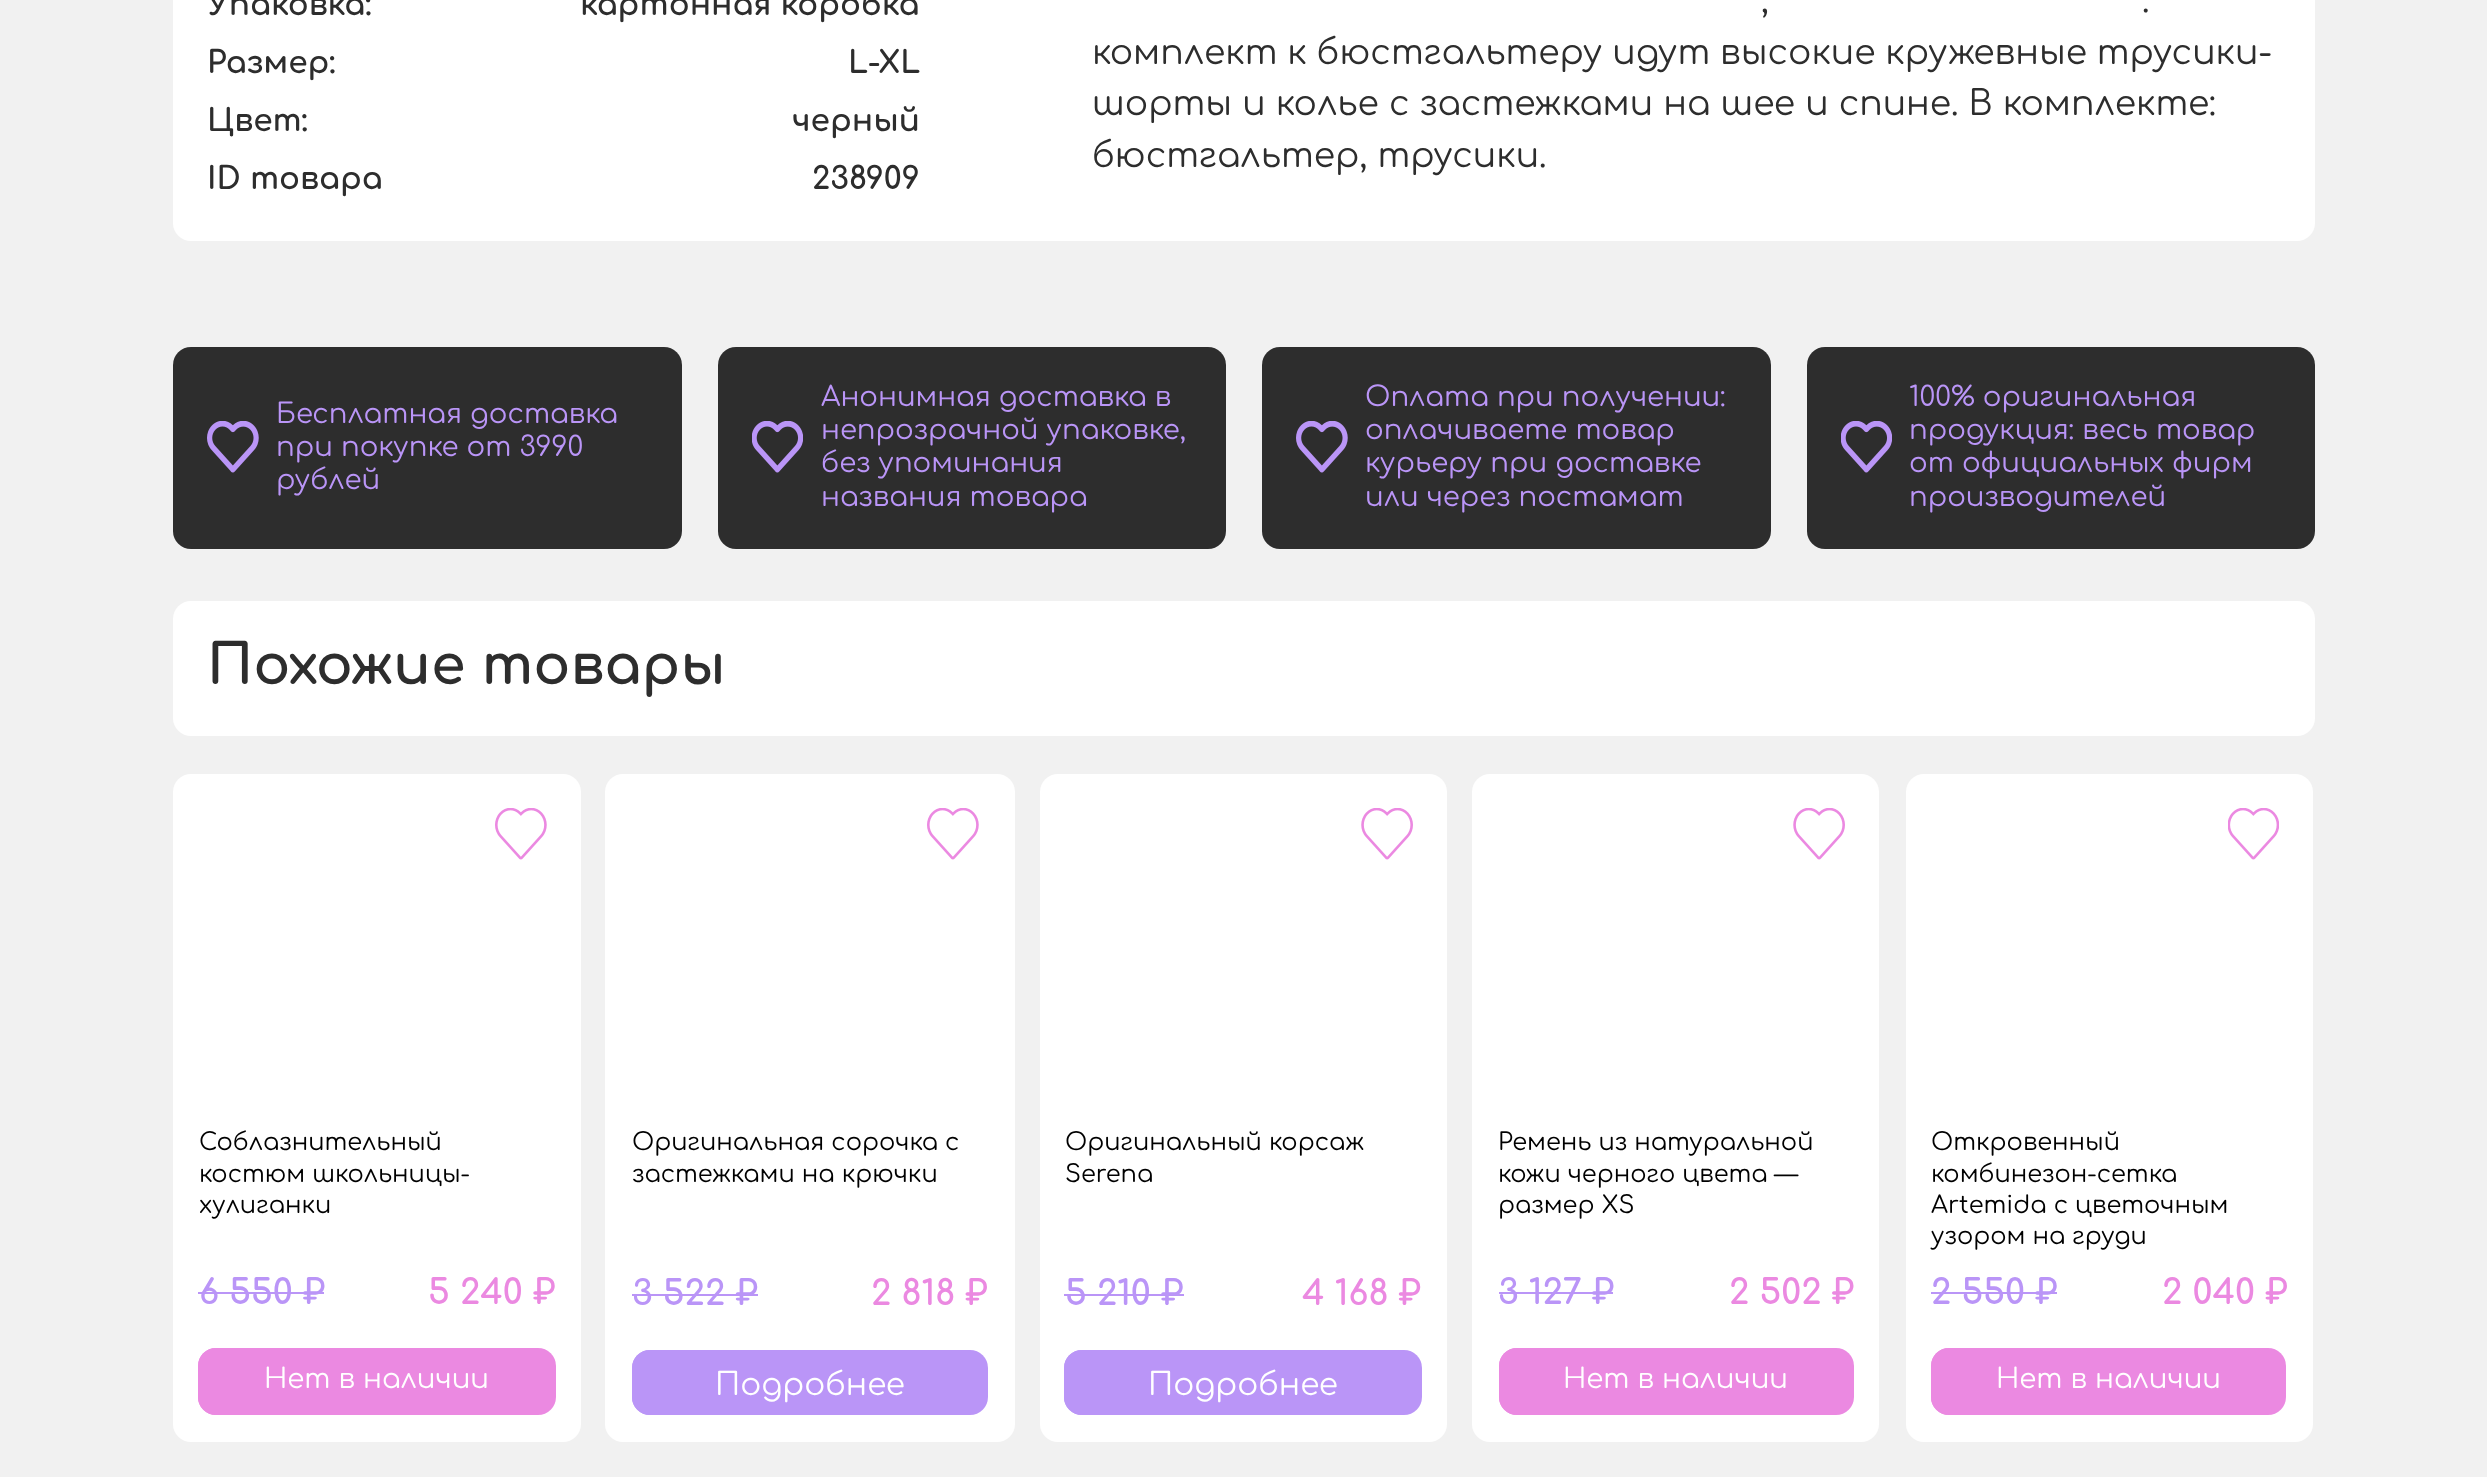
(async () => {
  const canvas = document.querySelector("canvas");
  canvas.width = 2487;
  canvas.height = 1477;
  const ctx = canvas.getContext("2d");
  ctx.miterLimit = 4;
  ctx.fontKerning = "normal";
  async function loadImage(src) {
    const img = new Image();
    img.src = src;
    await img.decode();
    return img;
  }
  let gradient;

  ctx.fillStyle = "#f1f1f1";
  ctx.fillRect(0, 0, 2487, 1477);
  ctx.fillStyle = "#ffffff";
  ctx.beginPath();
  ctx.roundRect(173, -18, 2142, 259, 18);
  ctx.fill();
  ctx.fillStyle = "#2d2d2d";
  ctx.beginPath();
  ctx.roundRect(173, 347, 509, 202, 18);
  ctx.fill();
  ctx.drawImage(await loadImage("img/1.png"), 207, 421, 52, 52);
  ctx.beginPath();
  ctx.roundRect(718, 347, 508, 202, 18);
  ctx.fill();
  ctx.drawImage(await loadImage("img/2.png"), 752, 421, 51, 52);
  ctx.beginPath();
  ctx.roundRect(1262, 347, 509, 202, 18);
  ctx.fill();
  ctx.drawImage(await loadImage("img/1.png"), 1296, 421, 52, 52);
  ctx.beginPath();
  ctx.roundRect(1807, 347, 508, 202, 18);
  ctx.fill();
  ctx.drawImage(await loadImage("img/2.png"), 1841, 421, 51, 52);
  ctx.fillStyle = "#ffffff";
  ctx.beginPath();
  ctx.roundRect(173, 601, 2142, 135, 18);
  ctx.fill();
  ctx.beginPath();
  ctx.roundRect(173, 774, 408, 668, 18);
  ctx.fill();
  ctx.drawImage(await loadImage("img/3.png"), 495, 808, 52, 52);
  ctx.fillStyle = "#ba95f7";
  ctx.fillRect(198, 1292, 126, 2);
  ctx.fillStyle = "#eb89e1";
  ctx.beginPath();
  ctx.roundRect(198, 1348, 358, 67, 18);
  ctx.fill();
  gradient = ctx.createLinearGradient(198, 1382, 556, 1382);
  gradient.addColorStop(0, "#eb89e1");
  gradient.addColorStop(1, "rgba(235, 137, 225, 0)");
  ctx.fillStyle = gradient;
  ctx.beginPath();
  ctx.roundRect(198, 1348, 358, 67, 18);
  ctx.fill();
  ctx.fillStyle = "#ffffff";
  ctx.beginPath();
  ctx.roundRect(605, 774, 410, 668, 18);
  ctx.fill();
  ctx.drawImage(await loadImage("img/3.png"), 927, 808, 52, 52);
  ctx.fillStyle = "#ba95f7";
  ctx.fillRect(632, 1294, 126, 2);
  ctx.beginPath();
  ctx.roundRect(632, 1350, 356, 65, 18);
  ctx.fill();
  gradient = ctx.createLinearGradient(632, 1383, 988, 1383);
  gradient.addColorStop(0, "#ba95f7");
  gradient.addColorStop(1, "rgba(186, 149, 247, 0)");
  ctx.fillStyle = gradient;
  ctx.beginPath();
  ctx.roundRect(632, 1350, 356, 65, 18);
  ctx.fill();
  ctx.fillStyle = "#ffffff";
  ctx.beginPath();
  ctx.roundRect(1040, 774, 407, 668, 18);
  ctx.fill();
  ctx.drawImage(await loadImage("img/4.png"), 1361, 808, 52, 52);
  ctx.fillStyle = "#ba95f7";
  ctx.fillRect(1064, 1294, 120, 2);
  ctx.beginPath();
  ctx.roundRect(1064, 1350, 358, 65, 18);
  ctx.fill();
  gradient = ctx.createLinearGradient(1064, 1383, 1422, 1383);
  gradient.addColorStop(0, "#ba95f7");
  gradient.addColorStop(1, "rgba(186, 149, 247, 0)");
  ctx.fillStyle = gradient;
  ctx.beginPath();
  ctx.roundRect(1064, 1350, 358, 65, 18);
  ctx.fill();
  ctx.fillStyle = "#ffffff";
  ctx.beginPath();
  ctx.roundRect(1472, 774, 407, 668, 18);
  ctx.fill();
  ctx.drawImage(await loadImage("img/4.png"), 1793, 808, 52, 52);
  ctx.fillStyle = "#ba95f7";
  ctx.fillRect(1499, 1292, 114, 2);
  ctx.fillStyle = "#eb89e1";
  ctx.beginPath();
  ctx.roundRect(1499, 1348, 355, 67, 18);
  ctx.fill();
  gradient = ctx.createLinearGradient(1499, 1382, 1854, 1382);
  gradient.addColorStop(0, "#eb89e1");
  gradient.addColorStop(1, "rgba(235, 137, 225, 0)");
  ctx.fillStyle = gradient;
  ctx.beginPath();
  ctx.roundRect(1499, 1348, 355, 67, 18);
  ctx.fill();
  ctx.fillStyle = "#ffffff";
  ctx.beginPath();
  ctx.roundRect(1906, 774, 407, 668, 18);
  ctx.fill();
  ctx.drawImage(await loadImage("img/5.png"), 2228, 808, 51, 52);
  ctx.fillStyle = "#ba95f7";
  ctx.fillRect(1931, 1292, 126, 2);
  ctx.fillStyle = "#eb89e1";
  ctx.beginPath();
  ctx.roundRect(1931, 1348, 355, 67, 18);
  ctx.fill();
  gradient = ctx.createLinearGradient(1931, 1382, 2286, 1382);
  gradient.addColorStop(0, "#eb89e1");
  gradient.addColorStop(1, "rgba(235, 137, 225, 0)");
  ctx.fillStyle = gradient;
  ctx.beginPath();
  ctx.roundRect(1931, 1348, 355, 67, 18);
  ctx.fill();
  ctx.font = "bold 31.1px Comfortaa";
  ctx.fillStyle = "#2d2d2d";
  for (const [text, x, y] of [
    ["Упаковка:", 207, 15],
    ["картонная коробка", 580, 15],
    ["Размер:", 207, 73],
    ["L-XL", 848, 73],
    ["Цвет:", 207, 131],
    ["черный", 792, 131],
    ["ID товара", 207, 189],
    ["238909", 812, 189],
  ]) {
    ctx.fillText(text, x, y);
  }
  ctx.font = "34.6px Comfortaa";
  ctx.fillText(",", 1761, 12);
  ctx.fillText(".", 2142, 12);
  ctx.wordSpacing = "-0.25px";
  ctx.fillText("комплект к бюстгальтеру идут высокие кружевные трусики-", 1092, 64);
  ctx.wordSpacing = "0px";
  ctx.fillText("шорты и колье с застежками на шее и спине. В комплекте:", 1092, 115);
  ctx.fillText("бюстгальтер, трусики.", 1092, 167);
  ctx.font = "27.6px Comfortaa";
  ctx.fillStyle = "#ba95f7";
  for (const [text, x, y] of [
    ["Бесплатная доставка", 276, 423],
    ["при покупке от 3990", 276, 456],
    ["рублей", 276, 489],
    ["Анонимная доставка в", 821, 406],
    ["непрозрачной упаковке,", 821, 439],
    ["без упоминания", 821, 472],
    ["названия товара", 821, 506],
    ["Оплата при получении:", 1365, 406],
    ["оплачиваете товар", 1365, 439],
    ["курьеру при доставке", 1365, 472],
    ["или через постамат", 1365, 506],
    ["100% оригинальная", 1909, 406],
    ["продукция: весь товар", 1909, 439],
    ["от официальных фирм", 1909, 472],
    ["производителей", 1909, 506],
  ]) {
    ctx.fillText(text, x, y);
  }
  ctx.font = "bold 55.25px Comfortaa";
  ctx.fillStyle = "#2d2d2d";
  ctx.fillText("Похожие товары", 207, 684);
  ctx.font = "24.1px Comfortaa";
  ctx.fillStyle = "#000000";
  for (const [text, x, y] of [
    ["Соблазнительный", 199, 1150],
    ["костюм школьницы-", 199, 1182],
    ["хулиганки", 199, 1213],
  ]) {
    ctx.fillText(text, x, y);
  }
  ctx.font = "bold 34.6px Comfortaa";
  ctx.fillStyle = "#ba95f7";
  ctx.fillText("6 550 ₽", 199, 1304);
  ctx.fillStyle = "#eb89e1";
  ctx.fillText("5 240 ₽", 428, 1304);
  ctx.font = "27.6px Comfortaa";
  ctx.fillStyle = "#ffffff";
  ctx.fillText("Нет в наличии", 264, 1388);
  ctx.font = "24.1px Comfortaa";
  ctx.fillStyle = "#000000";
  ctx.fillText("Оригинальная сорочка с", 632, 1150);
  ctx.fillText("застежками на крючки", 632, 1182);
  ctx.font = "bold 34.6px Comfortaa";
  ctx.fillStyle = "#ba95f7";
  ctx.fillText("3 522 ₽", 632, 1305);
  ctx.fillStyle = "#eb89e1";
  ctx.fillText("2 818 ₽", 871, 1305);
  ctx.font = "31.1px Comfortaa";
  ctx.fillStyle = "#ffffff";
  ctx.fillText("Подробнее", 715, 1395);
  ctx.font = "24.1px Comfortaa";
  ctx.fillStyle = "#000000";
  ctx.fillText("Оригинальный корсаж", 1065, 1150);
  ctx.fillText("Serena", 1065, 1182);
  ctx.font = "bold 34.6px Comfortaa";
  ctx.fillStyle = "#ba95f7";
  ctx.fillText("5 210 ₽", 1065, 1305);
  ctx.fillStyle = "#eb89e1";
  ctx.fillText("4 168 ₽", 1302, 1305);
  ctx.font = "31.1px Comfortaa";
  ctx.fillStyle = "#ffffff";
  ctx.fillText("Подробнее", 1148, 1395);
  ctx.font = "24.1px Comfortaa";
  ctx.fillStyle = "#000000";
  for (const [text, x, y] of [
    ["Ремень из натуральной", 1498, 1150],
    ["кожи черного цвета —", 1498, 1182],
    ["размер XS", 1498, 1213],
  ]) {
    ctx.fillText(text, x, y);
  }
  ctx.font = "bold 34.6px Comfortaa";
  ctx.fillStyle = "#ba95f7";
  ctx.fillText("3 127 ₽", 1498, 1304);
  ctx.fillStyle = "#eb89e1";
  ctx.fillText("2 502 ₽", 1729, 1304);
  ctx.font = "27.6px Comfortaa";
  ctx.fillStyle = "#ffffff";
  ctx.fillText("Нет в наличии", 1563, 1388);
  ctx.font = "24.1px Comfortaa";
  ctx.fillStyle = "#000000";
  for (const [text, x, y] of [
    ["Откровенный", 1931, 1150],
    ["комбинезон-сетка", 1931, 1182],
    ["Artemida с цветочным", 1931, 1213],
    ["узором на груди", 1931, 1244],
  ]) {
    ctx.fillText(text, x, y);
  }
  ctx.font = "bold 34.6px Comfortaa";
  ctx.fillStyle = "#ba95f7";
  ctx.fillText("2 550 ₽", 1931, 1304);
  ctx.fillStyle = "#eb89e1";
  ctx.fillText("2 040 ₽", 2162, 1304);
  ctx.font = "27.6px Comfortaa";
  ctx.fillStyle = "#ffffff";
  ctx.fillText("Нет в наличии", 1996, 1388);
})();
